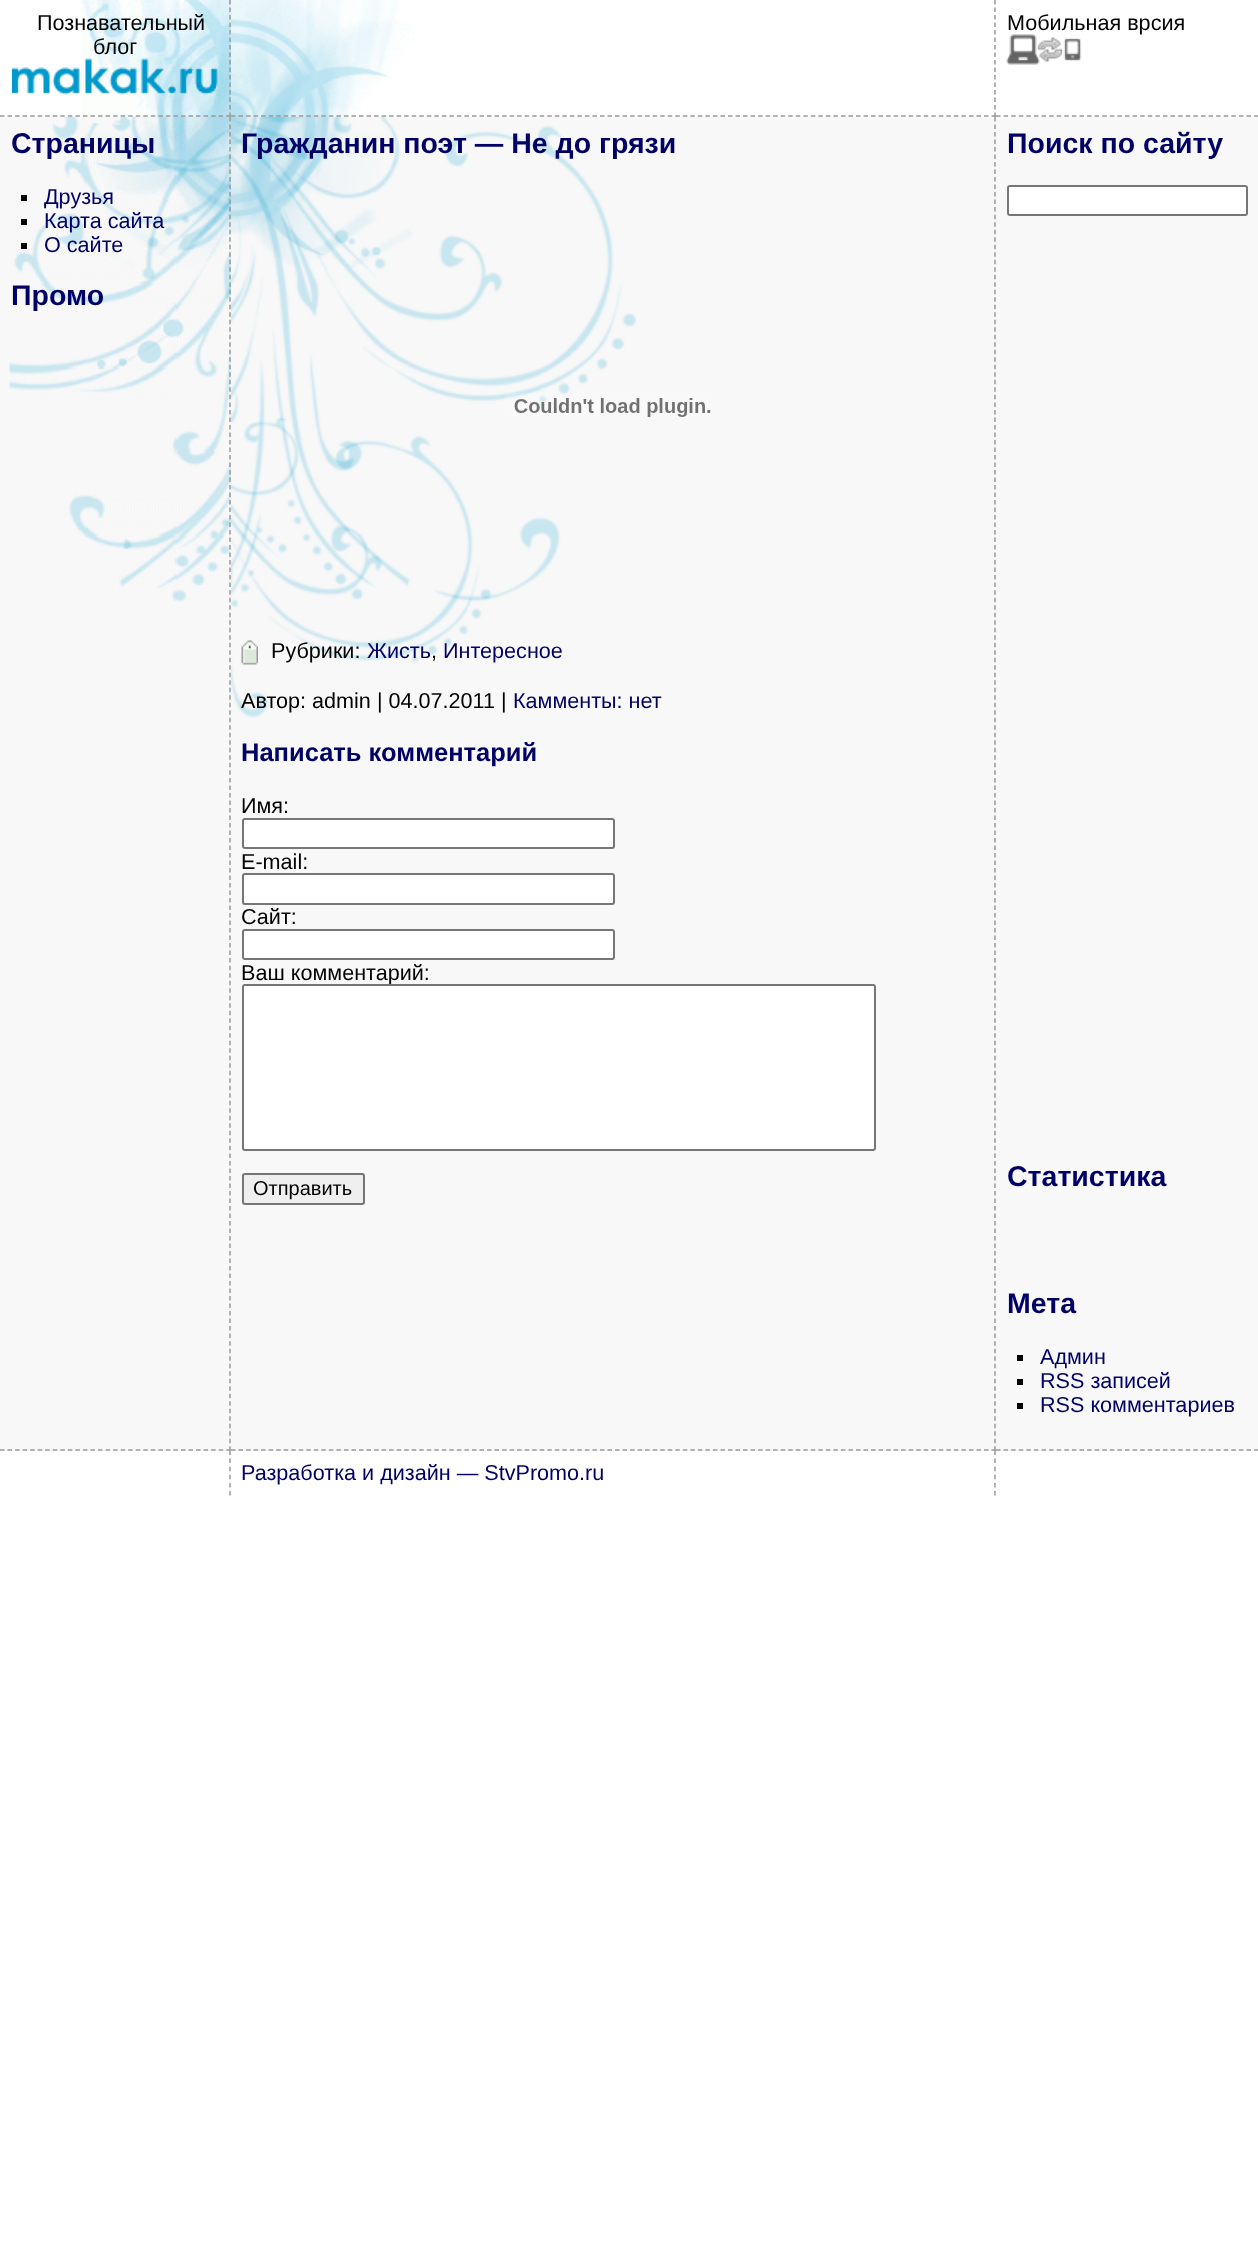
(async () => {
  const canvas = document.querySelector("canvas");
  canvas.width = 1258;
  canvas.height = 2264;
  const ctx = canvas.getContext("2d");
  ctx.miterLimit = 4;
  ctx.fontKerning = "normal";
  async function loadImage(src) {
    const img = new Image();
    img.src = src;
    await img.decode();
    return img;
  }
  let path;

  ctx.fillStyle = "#ffffff";
  ctx.fillRect(0, 0, 1258, 2264);
  ctx.drawImage(await loadImage("img/1.png"), 81, 0, 150, 117);
  path = new Path2D("M230 0V117");
  ctx.strokeStyle = "#999999";
  ctx.lineWidth = 1.5;
  ctx.setLineDash([4.5, 3]);
  ctx.stroke(path);
  path = new Path2D("M0 116H231");
  ctx.setLineDash([4.5, 3.04]);
  ctx.stroke(path);
  ctx.drawImage(await loadImage("img/2.png"), 12, 58, 206, 37);
  ctx.drawImage(await loadImage("img/3.png"), 231, 0, 184, 117);
  path = new Path2D("M995 0V117");
  ctx.setLineDash([4.5, 3]);
  ctx.stroke(path);
  path = new Path2D("M231 116H996");
  ctx.setLineDash([4.5, 3.03]);
  ctx.stroke(path);
  path = new Path2D("M996 116H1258.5");
  ctx.setLineDash([4.5, 3.09]);
  ctx.stroke(path);
  ctx.fillStyle = "#f8f8f8";
  ctx.fillRect(0, 117, 1258, 1334);
  ctx.drawImage(await loadImage("img/5.png"), 9, 117, 222, 485);
  path = new Path2D("M230 117V1450.5");
  ctx.setLineDash([4.5, 3.01]);
  ctx.stroke(path);
  path = new Path2D("M0 1450H231");
  ctx.setLineDash([4.5, 3.04]);
  ctx.stroke(path);
  for (const [x, y, w, h, color] of [
    [21, 195, 6, 6, "#000001"],
    [21, 219, 6, 6, "#000001"],
    [21, 243, 6, 6, "#000001"],
  ]) {
    ctx.fillStyle = color;
    ctx.fillRect(x, y, w, h);
  }
  ctx.drawImage(await loadImage("img/6.png"), 231, 117, 406, 601);
  path = new Path2D("M995 117V1450.5");
  ctx.setLineDash([4.5, 3.01]);
  ctx.stroke(path);
  path = new Path2D("M231 1450H996");
  ctx.setLineDash([4.5, 3.03]);
  ctx.stroke(path);
  ctx.drawImage(await loadImage("img/7.png"), 504, 393, 207, 24);
  ctx.drawImage(await loadImage("img/8.png"), 241, 640, 17, 25);
  ctx.fillStyle = "#ffffff";
  ctx.beginPath();
  ctx.roundRect(243, 819, 371, 29, 2);
  ctx.fill();
  ctx.strokeStyle = "#767676";
  ctx.lineWidth = 2;
  ctx.setLineDash([]);
  ctx.stroke();
  ctx.beginPath();
  ctx.roundRect(243, 874, 371, 30, 2);
  ctx.fill();
  ctx.stroke();
  ctx.beginPath();
  ctx.roundRect(243, 930, 371, 29, 2);
  ctx.fill();
  ctx.stroke();
  ctx.fillStyle = "#efefef";
  ctx.beginPath();
  ctx.roundRect(243, 1174, 121, 30, 2);
  ctx.fill();
  ctx.stroke();
  path = new Path2D("M996 1450H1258.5");
  ctx.strokeStyle = "#999999";
  ctx.lineWidth = 1.5;
  ctx.setLineDash([4.5, 3.09]);
  ctx.stroke(path);
  ctx.fillStyle = "#ffffff";
  ctx.beginPath();
  ctx.roundRect(1008, 186, 239, 29, 2);
  ctx.fill();
  ctx.strokeStyle = "#767676";
  ctx.lineWidth = 2;
  ctx.setLineDash([]);
  ctx.stroke();
  for (const [x, y, w, h, color] of [
    [1017, 1355, 6, 6, "#000001"],
    [1017, 1379, 6, 6, "#000001"],
    [1017, 1403, 6, 6, "#000001"],
  ]) {
    ctx.fillStyle = color;
    ctx.fillRect(x, y, w, h);
  }
  path = new Path2D("M230 1450.5V1495.5");
  ctx.strokeStyle = "#999999";
  ctx.lineWidth = 1.5;
  ctx.setLineDash([4.5, 3.6]);
  ctx.stroke(path);
  path = new Path2D("M995 1450.5V1495.5");
  ctx.stroke(path);
  ctx.font = "21.6px Liberation Sans";
  for (const [text, x, y] of [
    ["Познавательный", 37, 30],
    ["блог", 93, 54],
    ["Мобильная врсия", 1007, 30],
  ]) {
    ctx.fillText(text, x, y);
  }
  ctx.drawImage(await loadImage("img/4.png"), 1006, 34, 76, 31);
  ctx.font = "bold 28.5px Liberation Sans";
  ctx.fillStyle = "#000066";
  ctx.fillText("Страницы", 11, 153);
  ctx.font = "21.6px Liberation Sans";
  for (const [text, x, y] of [
    ["Друзья", 44, 204],
    ["Карта сайта", 44, 228],
    ["О сайте", 44, 252],
  ]) {
    ctx.fillText(text, x, y);
  }
  ctx.font = "bold 28.5px Liberation Sans";
  ctx.fillText("Промо", 11, 305);
  ctx.fillText("Гражданин поэт — Не до грязи", 241, 153);
  ctx.font = "21.6px Liberation Sans";
  ctx.fillStyle = "#000001";
  ctx.fillText("Рубрики:", 271, 658);
  ctx.fillStyle = "#000066";
  ctx.fillText("Жисть", 367, 658);
  ctx.fillStyle = "#000001";
  ctx.fillText(",", 431, 658);
  ctx.fillStyle = "#000066";
  ctx.fillText("Интересное", 443, 658);
  ctx.fillStyle = "#000001";
  ctx.fillText("Автор: admin | 04.07.2011 |", 241, 708);
  ctx.fillStyle = "#000066";
  ctx.fillText("Камменты: нет", 513, 708);
  ctx.font = "bold 25.5px Liberation Sans";
  ctx.fillText("Написать комментарий", 241, 761);
  ctx.font = "21.6px Liberation Sans";
  ctx.fillStyle = "#000001";
  for (const [text, x, y] of [
    ["Имя:", 241, 813],
    ["E-mail:", 241, 869],
    ["Сайт:", 241, 924],
    ["Ваш комментарий:", 241, 980],
  ]) {
    ctx.fillText(text, x, y);
  }
  ctx.fillStyle = "#ffffff";
  ctx.beginPath();
  ctx.roundRect(243, 985, 632, 165, 2);
  ctx.fill();
  ctx.strokeStyle = "#767676";
  ctx.lineWidth = 2;
  ctx.setLineDash([]);
  ctx.stroke();
  ctx.font = "20px Liberation Sans";
  ctx.fillStyle = "#000001";
  ctx.fillText("Отправить", 253, 1195);
  ctx.font = "bold 28.5px Liberation Sans";
  ctx.fillStyle = "#000066";
  for (const [text, x, y] of [
    ["Поиск по сайту", 1007, 153],
    ["Статистика", 1007, 1186],
    ["Мета", 1007, 1313],
  ]) {
    ctx.fillText(text, x, y);
  }
  ctx.font = "21.6px Liberation Sans";
  for (const [text, x, y] of [
    ["Админ", 1040, 1364],
    ["RSS записей", 1040, 1388],
    ["RSS комментариев", 1040, 1412],
    ["Разработка и дизайн — StvPromo.ru", 241, 1480],
  ]) {
    ctx.fillText(text, x, y);
  }
})();
